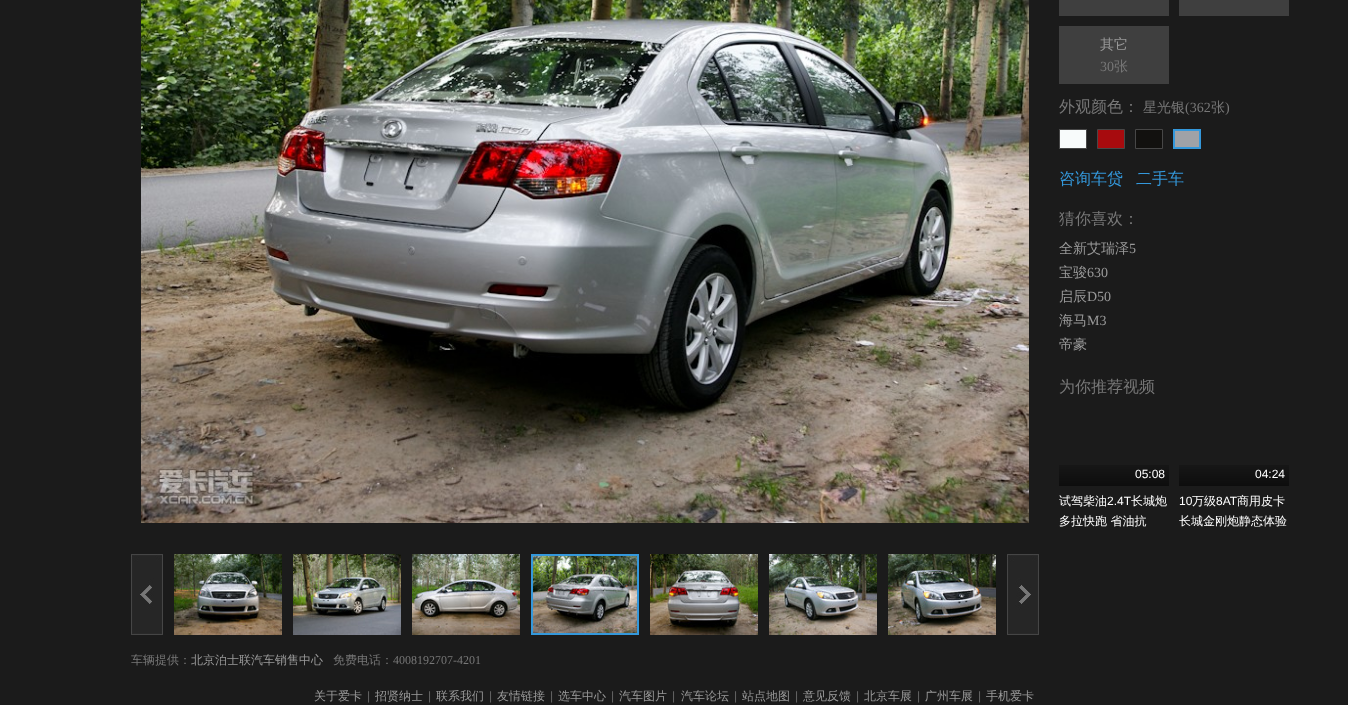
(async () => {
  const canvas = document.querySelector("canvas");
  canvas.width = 1348;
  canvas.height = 705;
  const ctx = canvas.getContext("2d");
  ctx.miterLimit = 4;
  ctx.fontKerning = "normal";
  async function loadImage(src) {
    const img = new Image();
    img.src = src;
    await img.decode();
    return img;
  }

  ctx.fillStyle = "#1b1b1b";
  ctx.fillRect(0, 0, 1348, 705);
  for (const [x, y, w, h, color] of [
    [1059, 0, 110, 16, "#3f3f3f"],
    [1179, 0, 110, 16, "#3f3f3f"],
    [1059, 26, 110, 58, "#3f3f3f"],
  ]) {
    ctx.fillStyle = color;
    ctx.fillRect(x, y, w, h);
  }
  ctx.fillStyle = "#f8fbfb";
  ctx.beginPath();
  ctx.rect(1059.5, 129.5, 27, 19);
  ctx.fill();
  ctx.strokeStyle = "#474747";
  ctx.stroke();
  ctx.fillStyle = "#a70b0e";
  ctx.beginPath();
  ctx.rect(1097.5, 129.5, 27, 19);
  ctx.fill();
  ctx.stroke();
  ctx.fillStyle = "#12110f";
  ctx.beginPath();
  ctx.rect(1135.5, 129.5, 27, 19);
  ctx.fill();
  ctx.stroke();
  ctx.fillStyle = "#9fa2a7";
  ctx.beginPath();
  ctx.rect(1174, 130, 26, 18);
  ctx.fill();
  ctx.strokeStyle = "#3498db";
  ctx.lineWidth = 2;
  ctx.stroke();
  ctx.drawImage(await loadImage("img/1.png"), 1059, 465, 110, 21);
  ctx.drawImage(await loadImage("img/1.png"), 1179, 465, 110, 21);
  ctx.drawImage(await loadImage("img/2.png"), 141, 0, 888, 523);
  ctx.drawImage(await loadImage("img/3.png"), 131, 554, 32, 81);
  ctx.drawImage(await loadImage("img/4.png"), 174, 554, 108, 81);
  ctx.drawImage(await loadImage("img/5.png"), 293, 554, 108, 81);
  ctx.drawImage(await loadImage("img/6.png"), 412, 554, 108, 81);
  ctx.drawImage(await loadImage("img/7.png"), 533, 556, 104, 77);
  ctx.strokeRect(532, 555, 106, 79);
  ctx.drawImage(await loadImage("img/8.png"), 650, 554, 108, 81);
  ctx.drawImage(await loadImage("img/9.png"), 769, 554, 108, 81);
  ctx.drawImage(await loadImage("img/10.png"), 888, 554, 108, 81);
  ctx.drawImage(await loadImage("img/11.png"), 1007, 554, 32, 81);
  ctx.font = "500 14px WenQuanYi Zen Hei";
  ctx.fillStyle = "#999999";
  ctx.fillText("其它", 1100, 49);
  ctx.font = "14px Liberation Serif";
  ctx.fillStyle = "#777777";
  ctx.fillText("30", 1100, 71);
  ctx.font = "500 14px WenQuanYi Zen Hei";
  ctx.fillText("张", 1114, 71);
  ctx.font = "500 16px WenQuanYi Zen Hei";
  ctx.fillText("外观颜色：", 1059, 112);
  ctx.font = "500 14px WenQuanYi Zen Hei";
  ctx.fillText("星光银", 1143, 112);
  ctx.font = "14px Liberation Serif";
  ctx.fillText("(362", 1185, 112);
  ctx.font = "500 14px WenQuanYi Zen Hei";
  ctx.fillText("张", 1211, 112);
  ctx.font = "14px Liberation Serif";
  ctx.fillText(")", 1225, 112);
  ctx.font = "500 16px WenQuanYi Zen Hei";
  ctx.fillStyle = "#3498db";
  ctx.fillText("咨询车贷", 1059, 184);
  ctx.fillText("二手车", 1136, 184);
  ctx.fillStyle = "#777777";
  ctx.fillText("猜你喜欢：", 1059, 224);
  ctx.font = "500 14px WenQuanYi Zen Hei";
  ctx.fillStyle = "#999999";
  ctx.fillText("全新艾瑞泽", 1059, 253);
  ctx.font = "14px Liberation Serif";
  ctx.fillText("5", 1129, 253);
  ctx.font = "500 14px WenQuanYi Zen Hei";
  ctx.fillText("宝骏", 1059, 277);
  ctx.font = "14px Liberation Serif";
  ctx.fillText("630", 1087, 277);
  ctx.font = "500 14px WenQuanYi Zen Hei";
  ctx.fillText("启辰", 1059, 301);
  ctx.font = "14px Liberation Serif";
  ctx.fillText("D50", 1087, 301);
  ctx.font = "500 14px WenQuanYi Zen Hei";
  ctx.fillText("海马", 1059, 325);
  ctx.font = "14px Liberation Serif";
  ctx.fillText("M3", 1087, 325);
  ctx.font = "500 14px WenQuanYi Zen Hei";
  ctx.fillText("帝豪", 1059, 349);
  ctx.font = "500 16px WenQuanYi Zen Hei";
  ctx.fillStyle = "#777777";
  ctx.fillText("为你推荐视频", 1059, 392);
  ctx.font = "12px Liberation Sans";
  ctx.fillStyle = "#ffffff";
  ctx.fillText("05:08", 1135, 478);
  ctx.font = "500 12px WenQuanYi Zen Hei";
  ctx.fillText("试驾柴油", 1059, 505);
  ctx.font = "12px Liberation Sans";
  ctx.fillText("2.4T", 1107, 505);
  ctx.font = "500 12px WenQuanYi Zen Hei";
  ctx.fillText("长城炮", 1131, 505);
  ctx.fillText("多拉快跑 省油抗", 1059, 525);
  ctx.font = "12px Liberation Sans";
  ctx.fillText("04:24", 1255, 478);
  ctx.fillText("10", 1179, 505);
  ctx.font = "500 12px WenQuanYi Zen Hei";
  ctx.fillText("万级", 1192, 505);
  ctx.font = "12px Liberation Sans";
  ctx.fillText("8AT", 1216, 505);
  ctx.font = "500 12px WenQuanYi Zen Hei";
  ctx.fillText("商用皮卡", 1237, 505);
  ctx.fillText("长城金刚炮静态体验", 1179, 525);
  ctx.fillStyle = "#777777";
  ctx.fillText("车辆提供：", 131, 664);
  ctx.fillStyle = "#999999";
  ctx.fillText("北京泊士联汽车销售中心", 191, 664);
  ctx.fillStyle = "#777777";
  ctx.fillText("免费电话：", 333, 664);
  ctx.font = "12px Liberation Serif";
  ctx.fillText("4008192707-4201", 393, 664);
  ctx.font = "500 12px WenQuanYi Zen Hei";
  ctx.fillStyle = "#999999";
  ctx.fillText("关于爱卡", 314, 700);
  ctx.font = "12px Liberation Sans";
  ctx.fillStyle = "#666666";
  ctx.fillText("|", 367, 700);
  ctx.font = "500 12px WenQuanYi Zen Hei";
  ctx.fillStyle = "#999999";
  ctx.fillText("招贤纳士", 375, 700);
  ctx.font = "12px Liberation Sans";
  ctx.fillStyle = "#666666";
  ctx.fillText("|", 428, 700);
  ctx.font = "500 12px WenQuanYi Zen Hei";
  ctx.fillStyle = "#999999";
  ctx.fillText("联系我们", 436, 700);
  ctx.font = "12px Liberation Sans";
  ctx.fillStyle = "#666666";
  ctx.fillText("|", 489, 700);
  ctx.font = "500 12px WenQuanYi Zen Hei";
  ctx.fillStyle = "#999999";
  ctx.fillText("友情链接", 497, 700);
  ctx.font = "12px Liberation Sans";
  ctx.fillStyle = "#666666";
  ctx.fillText("|", 550, 700);
  ctx.font = "500 12px WenQuanYi Zen Hei";
  ctx.fillStyle = "#999999";
  ctx.fillText("选车中心", 558, 700);
  ctx.font = "12px Liberation Sans";
  ctx.fillStyle = "#666666";
  ctx.fillText("|", 611, 700);
  ctx.font = "500 12px WenQuanYi Zen Hei";
  ctx.fillStyle = "#999999";
  ctx.fillText("汽车图片", 619, 700);
  ctx.font = "12px Liberation Sans";
  ctx.fillStyle = "#666666";
  ctx.fillText("|", 672, 700);
  ctx.font = "500 12px WenQuanYi Zen Hei";
  ctx.fillStyle = "#999999";
  ctx.fillText("汽车论坛", 681, 700);
  ctx.font = "12px Liberation Sans";
  ctx.fillStyle = "#666666";
  ctx.fillText("|", 734, 700);
  ctx.font = "500 12px WenQuanYi Zen Hei";
  ctx.fillStyle = "#999999";
  ctx.fillText("站点地图", 742, 700);
  ctx.font = "12px Liberation Sans";
  ctx.fillStyle = "#666666";
  ctx.fillText("|", 795, 700);
  ctx.font = "500 12px WenQuanYi Zen Hei";
  ctx.fillStyle = "#999999";
  ctx.fillText("意见反馈", 803, 700);
  ctx.font = "12px Liberation Sans";
  ctx.fillStyle = "#666666";
  ctx.fillText("|", 856, 700);
  ctx.font = "500 12px WenQuanYi Zen Hei";
  ctx.fillStyle = "#999999";
  ctx.fillText("北京车展", 864, 700);
  ctx.font = "12px Liberation Sans";
  ctx.fillStyle = "#666666";
  ctx.fillText("|", 917, 700);
  ctx.font = "500 12px WenQuanYi Zen Hei";
  ctx.fillStyle = "#999999";
  ctx.fillText("广州车展", 925, 700);
  ctx.font = "12px Liberation Sans";
  ctx.fillStyle = "#666666";
  ctx.fillText("|", 978, 700);
  ctx.font = "500 12px WenQuanYi Zen Hei";
  ctx.fillStyle = "#999999";
  ctx.fillText("手机爱卡", 986, 700);
})();
